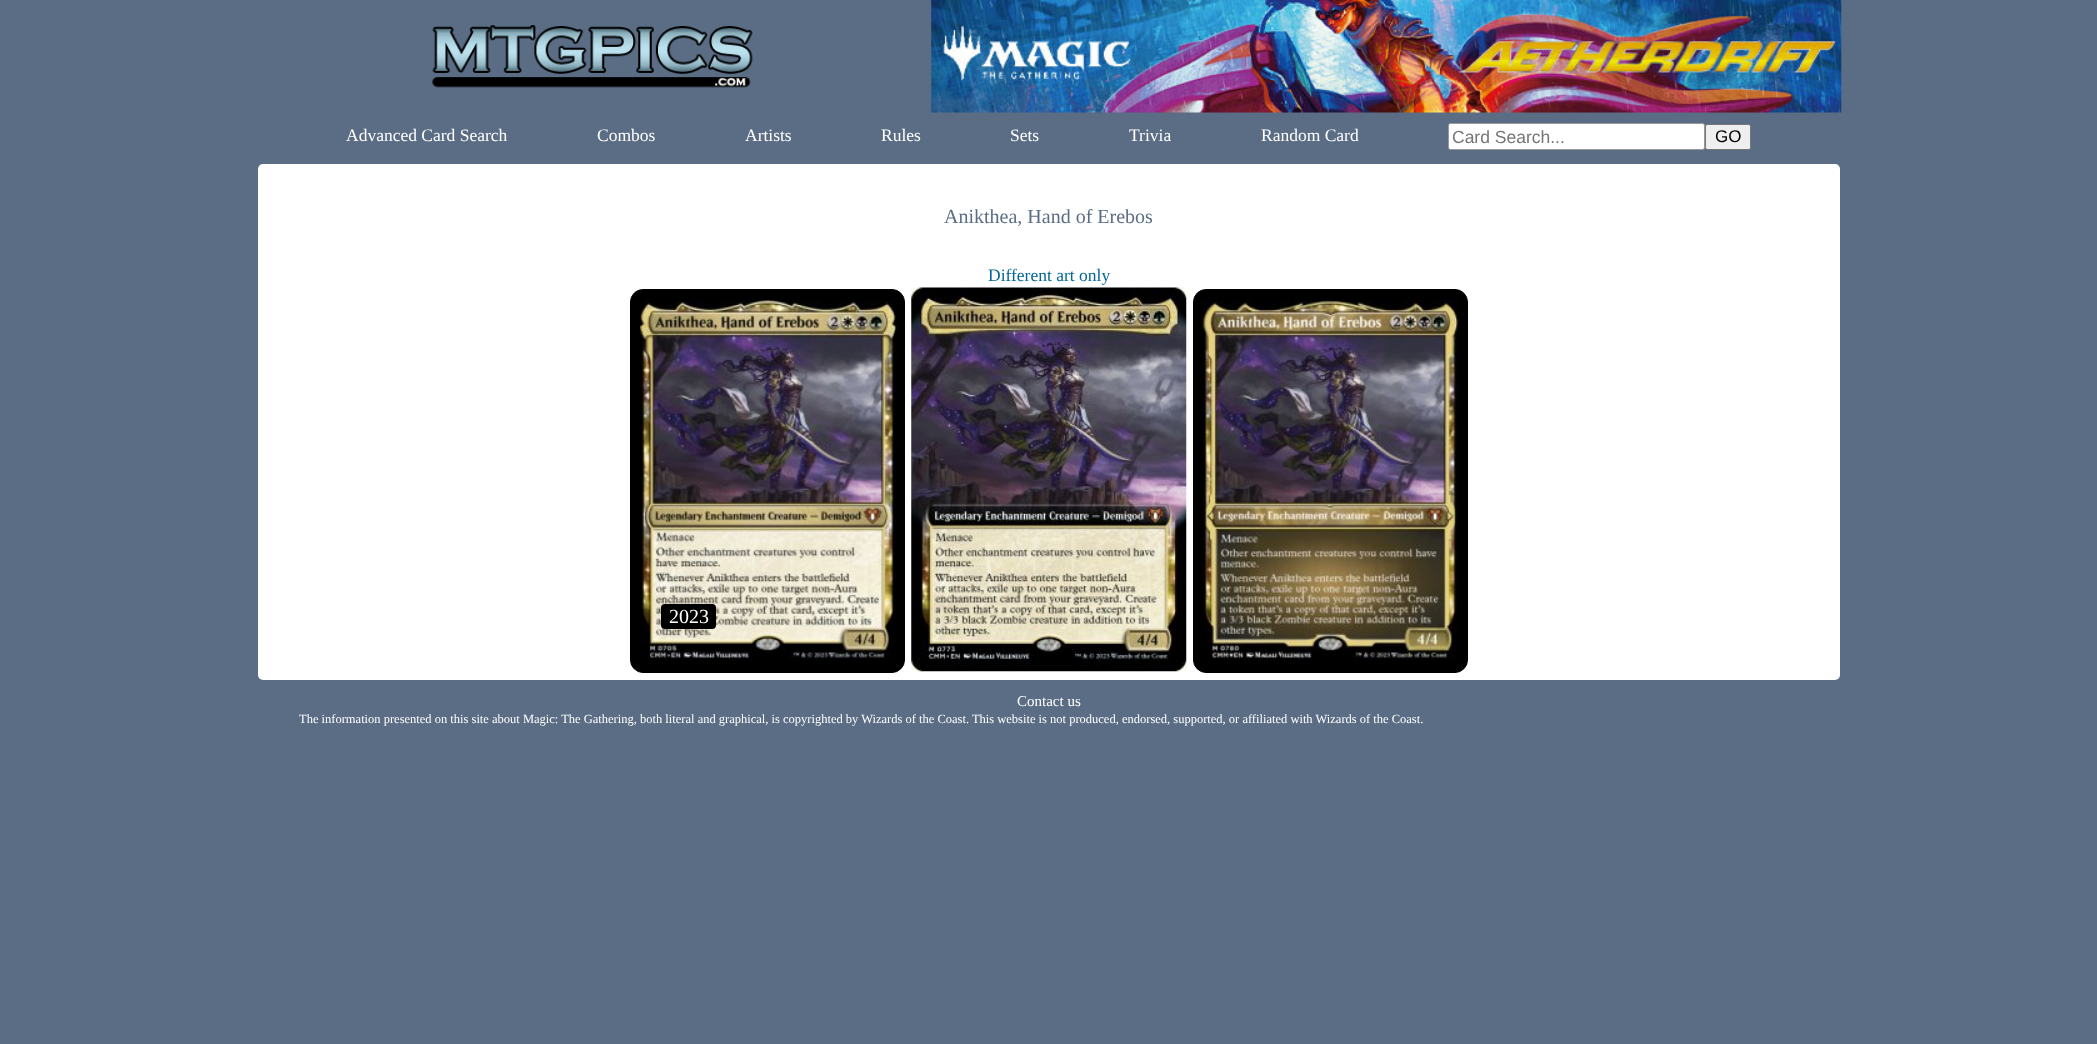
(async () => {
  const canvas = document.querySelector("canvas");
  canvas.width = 2097;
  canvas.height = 1044;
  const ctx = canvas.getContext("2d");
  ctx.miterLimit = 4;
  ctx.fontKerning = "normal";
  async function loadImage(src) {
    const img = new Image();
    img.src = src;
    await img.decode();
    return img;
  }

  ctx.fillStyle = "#5a6d85";
  ctx.fillRect(0, 0, 2097, 1044);
  ctx.drawImage(await loadImage("img/1.png"), 432, 25, 321, 63);
  ctx.drawImage(await loadImage("img/2.png"), 931, 0, 911, 113);
  ctx.fillStyle = "#ffffff";
  ctx.beginPath();
  ctx.roundRect(1448.5, 123.5, 256, 26, 2);
  ctx.fill();
  ctx.strokeStyle = "#999999";
  ctx.stroke();
  ctx.fillStyle = "#efefef";
  ctx.beginPath();
  ctx.roundRect(1705.5, 124.5, 45, 25, 2);
  ctx.fill();
  ctx.strokeStyle = "#767676";
  ctx.stroke();
  ctx.fillStyle = "#ffffff";
  ctx.beginPath();
  ctx.roundRect(258, 164, 1582, 516, 5);
  ctx.fill();
  ctx.fillStyle = "#000000";
  ctx.beginPath();
  ctx.roundRect(630.5, 289.5, 274, 383, 12.5);
  ctx.fill();
  ctx.strokeStyle = "#000000";
  ctx.stroke();
  ctx.drawImage(await loadImage("img/3.png"), 640, 300, 257, 360);
  ctx.beginPath();
  ctx.roundRect(661, 604, 55, 25, 4);
  ctx.fill();
  ctx.drawImage(await loadImage("img/4.png"), 911, 287, 276, 385);
  ctx.beginPath();
  ctx.roundRect(1193.5, 289.5, 274, 383, 12.5);
  ctx.fill();
  ctx.stroke();
  ctx.drawImage(await loadImage("img/5.png"), 1202, 300, 257, 360);
  ctx.font = "17.5px Liberation Serif";
  ctx.fillStyle = "#ffffff";
  for (const [text, x, y] of [
    ["Advanced Card Search", 346, 141],
    ["Combos", 597, 141],
    ["Artists", 745, 141],
    ["Rules", 881, 141],
    ["Sets", 1010, 141],
    ["Trivia", 1129, 141],
    ["Random Card", 1261, 141],
  ]) {
    ctx.fillText(text, x, y);
  }
  ctx.font = "17.5px Liberation Sans";
  ctx.fillStyle = "#757575";
  ctx.fillText("Card Search...", 1452, 143);
  ctx.font = "17px Liberation Sans";
  ctx.fillStyle = "#000000";
  ctx.fillText("GO", 1715, 142);
  ctx.font = "20px Liberation Serif";
  ctx.fillStyle = "#5a6d85";
  ctx.fillText("Anikthea, Hand of Erebos", 944, 223);
  ctx.font = "17.5px Liberation Serif";
  ctx.fillStyle = "#006699";
  ctx.fillText("Different art only", 988, 281);
  ctx.font = "20px Liberation Serif";
  ctx.fillStyle = "#ffffff";
  ctx.fillText("2023", 669, 623);
  ctx.font = "15px Liberation Serif";
  ctx.fillText("Contact us", 1017, 706);
  ctx.font = "12.5px Liberation Serif";
  ctx.fillText("The information presented on this site about Magic: The Gathering, both literal and graphical, is copyrighted by Wizards of the Coast. This website is not produced, endorsed, supported, or affiliated with Wizards of the Coast.", 299, 723);
})();
